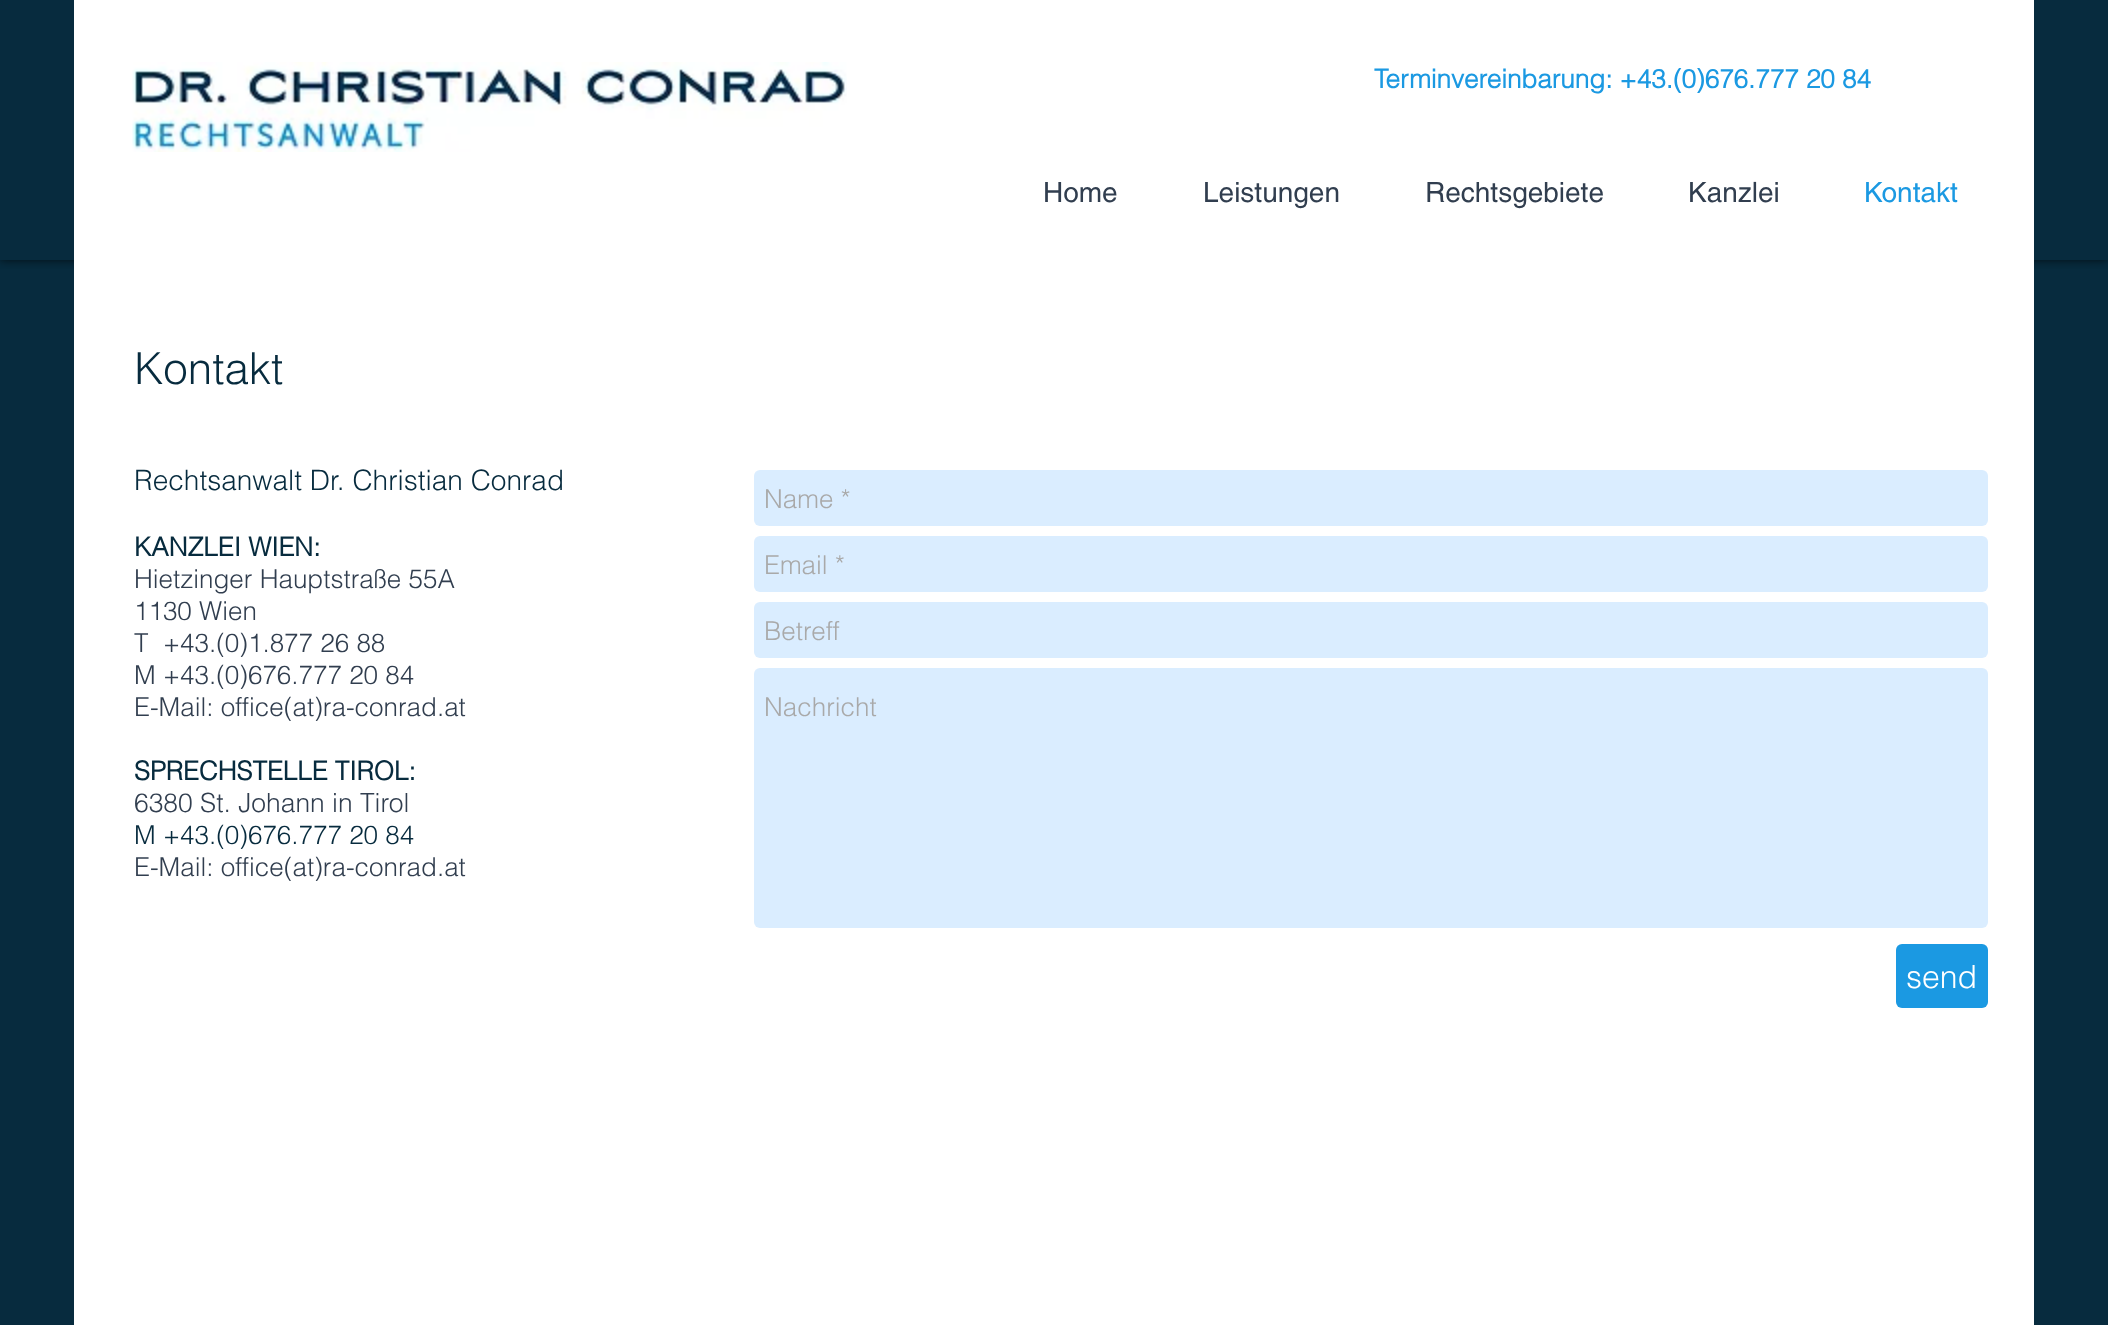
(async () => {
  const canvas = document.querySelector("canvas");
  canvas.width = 2108;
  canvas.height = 1325;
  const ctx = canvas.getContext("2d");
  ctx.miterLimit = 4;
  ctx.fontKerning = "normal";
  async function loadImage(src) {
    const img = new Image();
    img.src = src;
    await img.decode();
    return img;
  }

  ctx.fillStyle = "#072b3e";
  ctx.fillRect(0, 0, 2108, 1325);
  ctx.save();
  ctx.beginPath();
  ctx.rect(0, 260, 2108, 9);
  ctx.clip();
  ctx.fillStyle = "rgba(0, 0, 0, 0.7)";
  ctx.filter = "blur(5px)";
  ctx.beginPath();
  ctx.rect(0, 0, 2108, 260);
  ctx.fill();
  ctx.filter = "none";
  ctx.restore();
  ctx.fillStyle = "#ffffff";
  ctx.fillRect(74, 0, 1960, 1325);
  ctx.drawImage(await loadImage("img/1.png"), 132, 62, 715, 90);
  ctx.fillStyle = "#daedff";
  ctx.beginPath();
  ctx.roundRect(754, 470, 1234, 56, 6);
  ctx.fill();
  ctx.beginPath();
  ctx.roundRect(754, 536, 1234, 56, 6);
  ctx.fill();
  ctx.beginPath();
  ctx.roundRect(754, 602, 1234, 56, 6);
  ctx.fill();
  ctx.beginPath();
  ctx.roundRect(754, 668, 1234, 260, 6);
  ctx.fill();
  ctx.fillStyle = "#1b99e2";
  ctx.beginPath();
  ctx.roundRect(1896, 944, 92, 64, 6);
  ctx.fill();
  ctx.font = "bold 26px helvetica";
  ctx.fillText("Terminvereinbarung: +43.(0)676.777 20 84", 1374, 88);
  ctx.font = "28px helvetica";
  ctx.fillStyle = "#313e4f";
  for (const [text, x, y] of [
    ["Home", 1043, 202],
    ["Leistungen", 1203, 202],
    ["Rechtsgebiete", 1425, 202],
    ["Kanzlei", 1688, 202],
  ]) {
    ctx.fillText(text, x, y);
  }
  ctx.fillStyle = "#1b99e2";
  ctx.fillText("Kontakt", 1864, 202);
  ctx.font = "300 44px helvetica";
  ctx.fillStyle = "#072b3e";
  ctx.fillText("Kontakt", 134, 384);
  ctx.font = "300 28px helvetica";
  ctx.fillText("Rechtsanwalt Dr. Christian Conrad", 134, 490);
  ctx.font = "bold 26px helvetica";
  ctx.fillText("KANZLEI WIEN:", 134, 556);
  ctx.font = "300 26px helvetica";
  ctx.fillStyle = "#313e4f";
  for (const [text, x, y] of [
    ["Hietzinger Hauptstraße 55A", 134, 588],
    ["1130 Wien", 134, 620],
    ["T  +43.(0)1.877 26 88", 134, 652],
    ["M +43.(0)676.777 20 84", 134, 684],
    ["E-Mail: office(at)ra-conrad.at", 134, 716],
  ]) {
    ctx.fillText(text, x, y);
  }
  ctx.font = "bold 26px helvetica";
  ctx.fillStyle = "#072b3e";
  ctx.fillText("SPRECHSTELLE TIROL:", 134, 780);
  ctx.font = "300 26.4px helvetica";
  ctx.fillStyle = "#313e4f";
  ctx.fillText("6380 St. Johann in Tirol", 134, 812);
  ctx.font = "300 26px helvetica";
  ctx.fillStyle = "#072b3e";
  ctx.fillText("M +43.(0)676.777 20 84", 134, 844);
  ctx.fillStyle = "#313e4f";
  ctx.fillText("E-Mail: office(at)ra-conrad.at", 134, 876);
  ctx.fillStyle = "#a9a9a9";
  for (const [text, x, y] of [
    ["Name *", 764, 508],
    ["Email *", 764, 574],
    ["Betreff", 764, 640],
    ["Nachricht", 764, 716],
  ]) {
    ctx.fillText(text, x, y);
  }
  ctx.font = "300 32px helvetica";
  ctx.fillStyle = "#ffffff";
  ctx.fillText("send", 1906, 988);
})();
